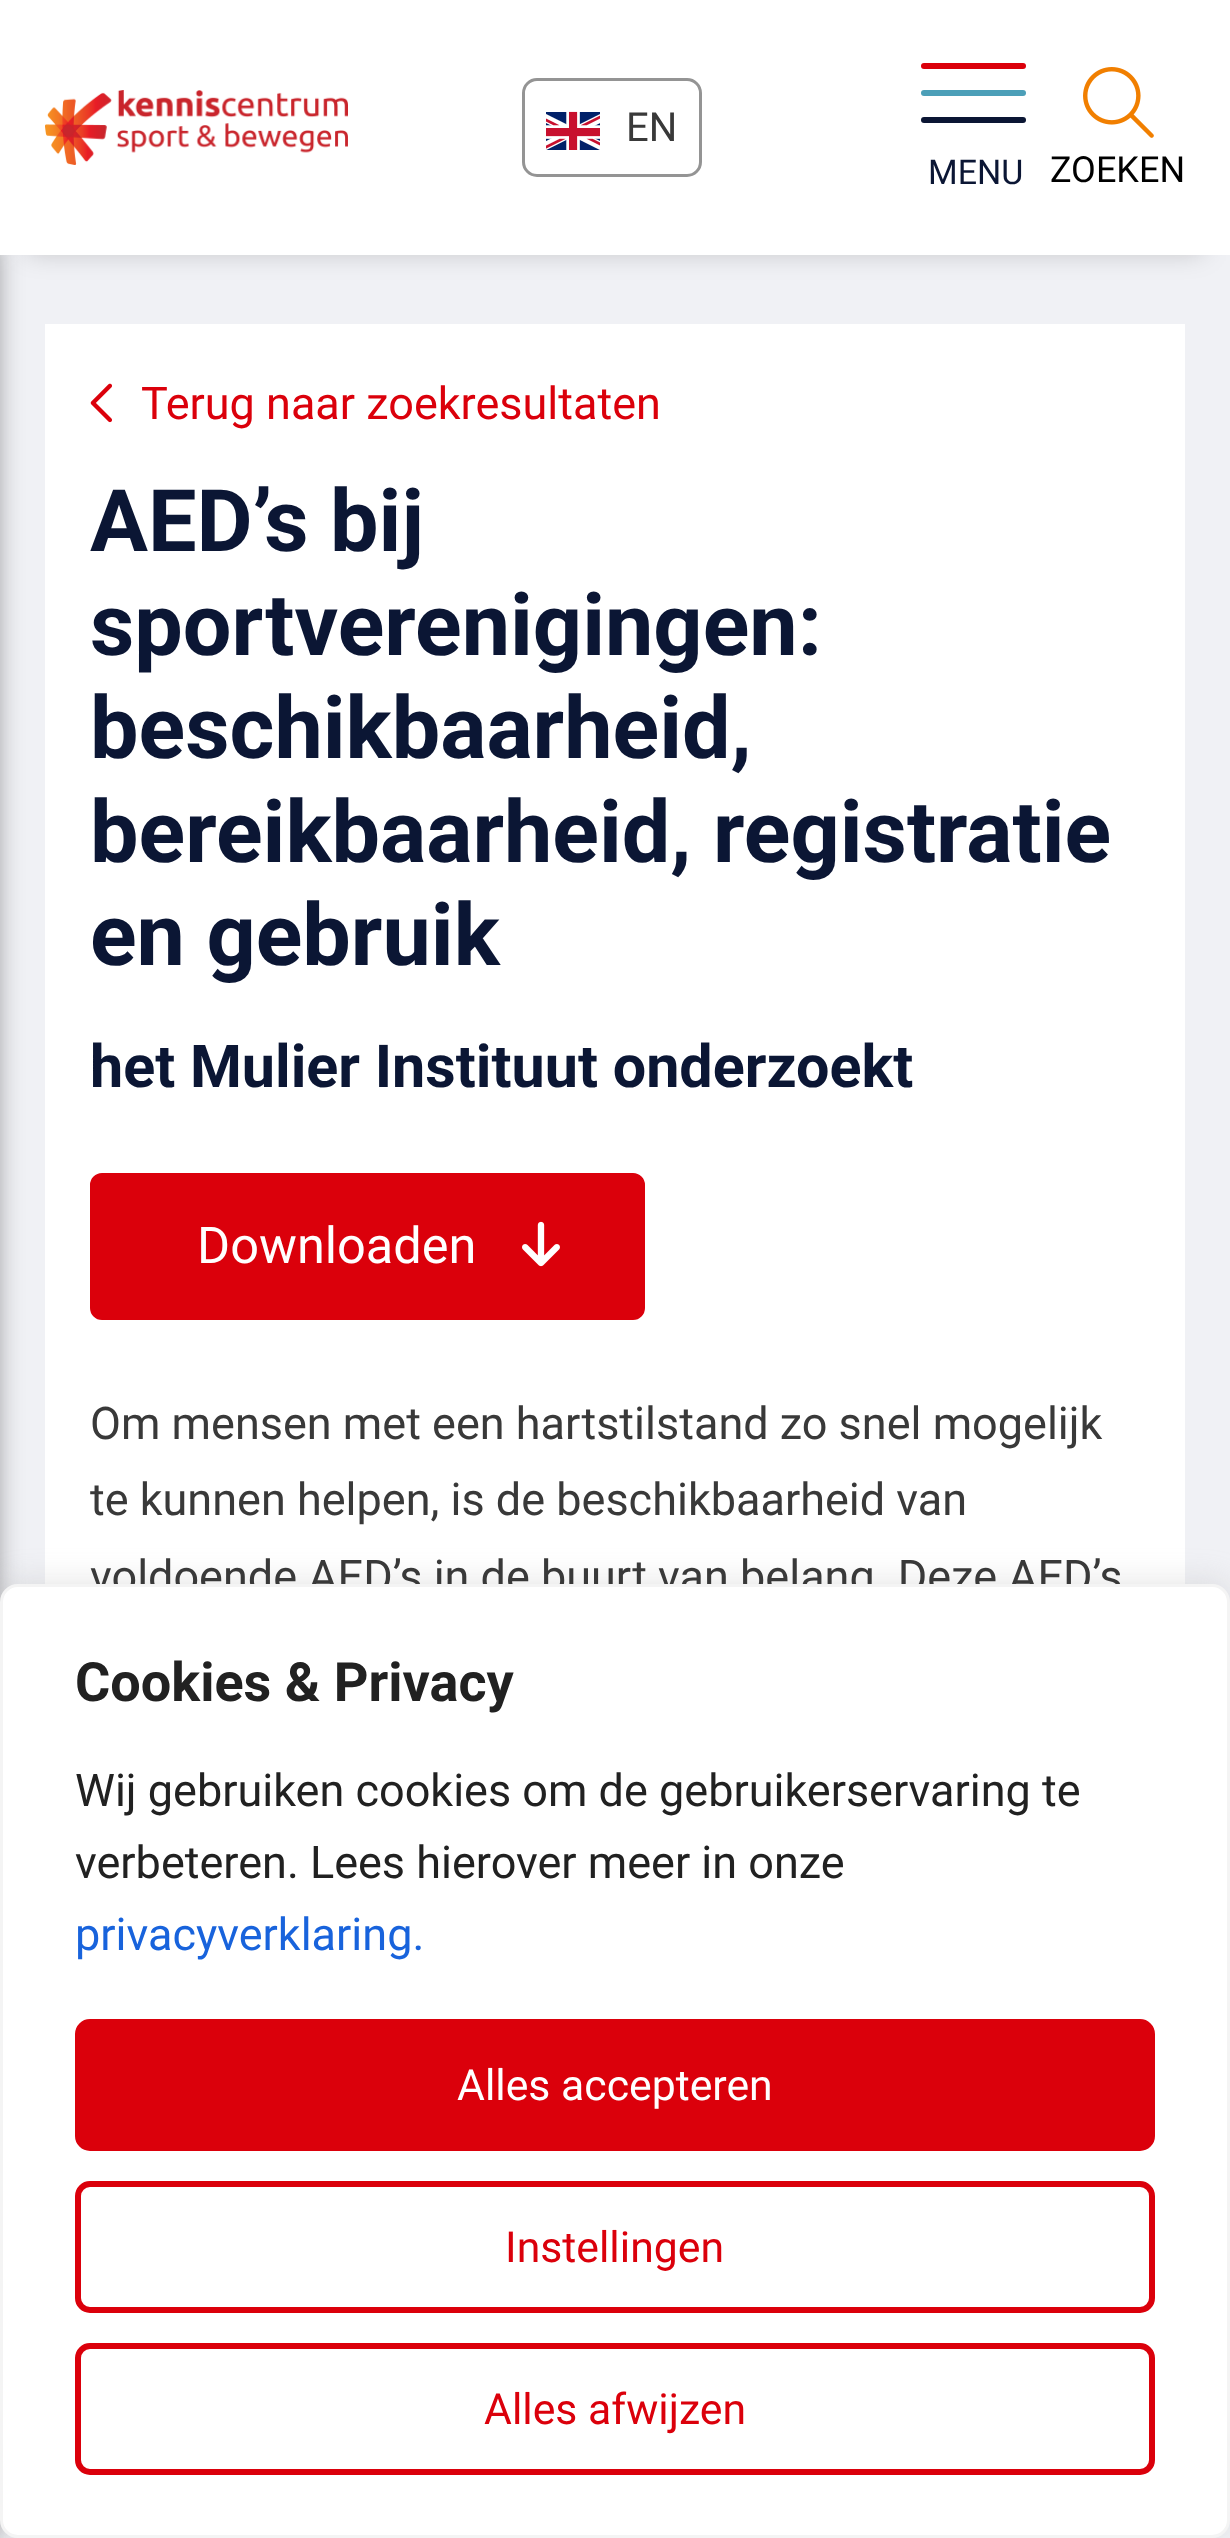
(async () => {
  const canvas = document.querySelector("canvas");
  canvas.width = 1230;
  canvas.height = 2538;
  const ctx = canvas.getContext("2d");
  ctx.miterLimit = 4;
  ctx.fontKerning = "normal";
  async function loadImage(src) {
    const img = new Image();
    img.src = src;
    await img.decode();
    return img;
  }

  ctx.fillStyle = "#f0f1f5";
  ctx.fillRect(0, 0, 1230, 2538);
  ctx.fillStyle = "rgba(50, 50, 50, 0.75)";
  ctx.filter = "blur(15px)";
  ctx.beginPath();
  ctx.rect(-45, 240, 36, 2298);
  ctx.fill();
  ctx.filter = "none";
  ctx.fillStyle = "rgba(0, 0, 0, 0.2)";
  ctx.filter = "blur(13.5px)";
  ctx.beginPath();
  ctx.rect(27, 51, 1176, 201);
  ctx.fill();
  ctx.filter = "none";
  ctx.fillStyle = "#ffffff";
  ctx.fillRect(0, 0, 1230, 255);
  ctx.drawImage(await loadImage("img/1.png"), 45, 90, 303, 75);
  ctx.beginPath();
  ctx.roundRect(523.5, 79.5, 177, 96, 13.5);
  ctx.strokeStyle = "#949494";
  ctx.lineWidth = 3;
  ctx.stroke();
  ctx.drawImage(await loadImage("img/2.png"), 546, 111, 54, 39);
  ctx.fillStyle = "#db000b";
  ctx.beginPath();
  ctx.roundRect(921, 63, 105, 6, 3);
  ctx.fill();
  ctx.fillStyle = "#4c9fb8";
  ctx.beginPath();
  ctx.roundRect(921, 90, 105, 6, 3);
  ctx.fill();
  ctx.fillStyle = "#0b1634";
  ctx.beginPath();
  ctx.roundRect(921, 117, 105, 6, 3);
  ctx.fill();
  ctx.drawImage(await loadImage("img/3.png"), 1083, 67, 71, 71);
  ctx.fillStyle = "#ffffff";
  ctx.fillRect(45, 324, 1140, 1260);
  ctx.drawImage(await loadImage("img/4.png"), 90, 383, 22, 40);
  ctx.fillStyle = "#db000b";
  ctx.beginPath();
  ctx.roundRect(93, 1176, 549, 141, 9);
  ctx.fill();
  ctx.strokeStyle = "#db000b";
  ctx.lineWidth = 6;
  ctx.stroke();
  ctx.drawImage(await loadImage("img/5.png"), 522, 1221, 38, 46);
  ctx.fillStyle = "rgba(172, 171, 171, 0.3)";
  ctx.filter = "blur(15px)";
  ctx.beginPath();
  ctx.roundRect(0, 1581, 1230, 954, 18);
  ctx.fill();
  ctx.filter = "none";
  ctx.font = "40px Roboto";
  ctx.fillStyle = "#393939";
  ctx.fillText("EN", 626, 141);
  ctx.font = "34px Roboto";
  ctx.fillStyle = "#0b1634";
  ctx.fillText("MENU", 928, 184);
  ctx.font = "36px Roboto";
  ctx.fillStyle = "#000000";
  ctx.fillText("ZOEKEN", 1050, 182);
  ctx.font = "45px Roboto";
  ctx.fillStyle = "#db000b";
  ctx.fillText("Terug naar zoekresultaten", 141, 419);
  ctx.font = "bold 86.3px Roboto";
  ctx.fillStyle = "#0b1634";
  for (const [text, x, y] of [
    ["AED’s bij", 90, 551],
    ["sportverenigingen:", 90, 655],
    ["beschikbaarheid,", 90, 758],
    ["bereikbaarheid, registratie", 90, 862],
    ["en gebruik", 90, 965],
  ]) {
    ctx.fillText(text, x, y);
  }
  ctx.font = "bold 59.25px Roboto";
  ctx.fillText("het Mulier Instituut onderzoekt", 90, 1087);
  ctx.font = "50.5px Roboto";
  ctx.fillStyle = "#ffffff";
  ctx.fillText("Downloaden", 197, 1263);
  ctx.font = "45px Roboto";
  ctx.fillStyle = "#393939";
  for (const [text, x, y] of [
    ["Om mensen met een hartstilstand zo snel mogelijk", 90, 1439],
    ["te kunnen helpen, is de beschikbaarheid van", 90, 1515],
    ["voldoende AED’s in de buurt van belang. Deze AED’s", 90, 1592],
  ]) {
    ctx.fillText(text, x, y);
  }
  ctx.fillStyle = "#ffffff";
  ctx.beginPath();
  ctx.roundRect(1.5, 1585.5, 1227, 951, 16.5);
  ctx.fill();
  ctx.strokeStyle = "#f4f4f4";
  ctx.lineWidth = 3;
  ctx.stroke();
  ctx.font = "bold 54px Roboto";
  ctx.fillStyle = "#212121";
  ctx.fillText("Cookies & Privacy", 75, 1701);
  ctx.font = "45px Roboto";
  ctx.fillText("Wij gebruiken cookies om de gebruikerservaring te", 75, 1806);
  ctx.fillText("verbeteren. Lees hierover meer in onze", 75, 1878);
  ctx.fillStyle = "#1863dc";
  ctx.fillText("privacyverklaring.", 75, 1950);
  ctx.fillStyle = "#db000b";
  ctx.beginPath();
  ctx.roundRect(78, 2022, 1074, 126, 12);
  ctx.fill();
  ctx.strokeStyle = "#db000b";
  ctx.lineWidth = 6;
  ctx.stroke();
  ctx.font = "42.75px Roboto";
  ctx.fillStyle = "#ffffff";
  ctx.fillText("Alles accepteren", 457, 2100);
  ctx.beginPath();
  ctx.roundRect(78, 2184, 1074, 126, 12);
  ctx.stroke();
  ctx.fillStyle = "#db000b";
  ctx.fillText("Instellingen", 505, 2262);
  ctx.beginPath();
  ctx.roundRect(78, 2346, 1074, 126, 12);
  ctx.stroke();
  ctx.fillText("Alles afwijzen", 484, 2424);
})();
